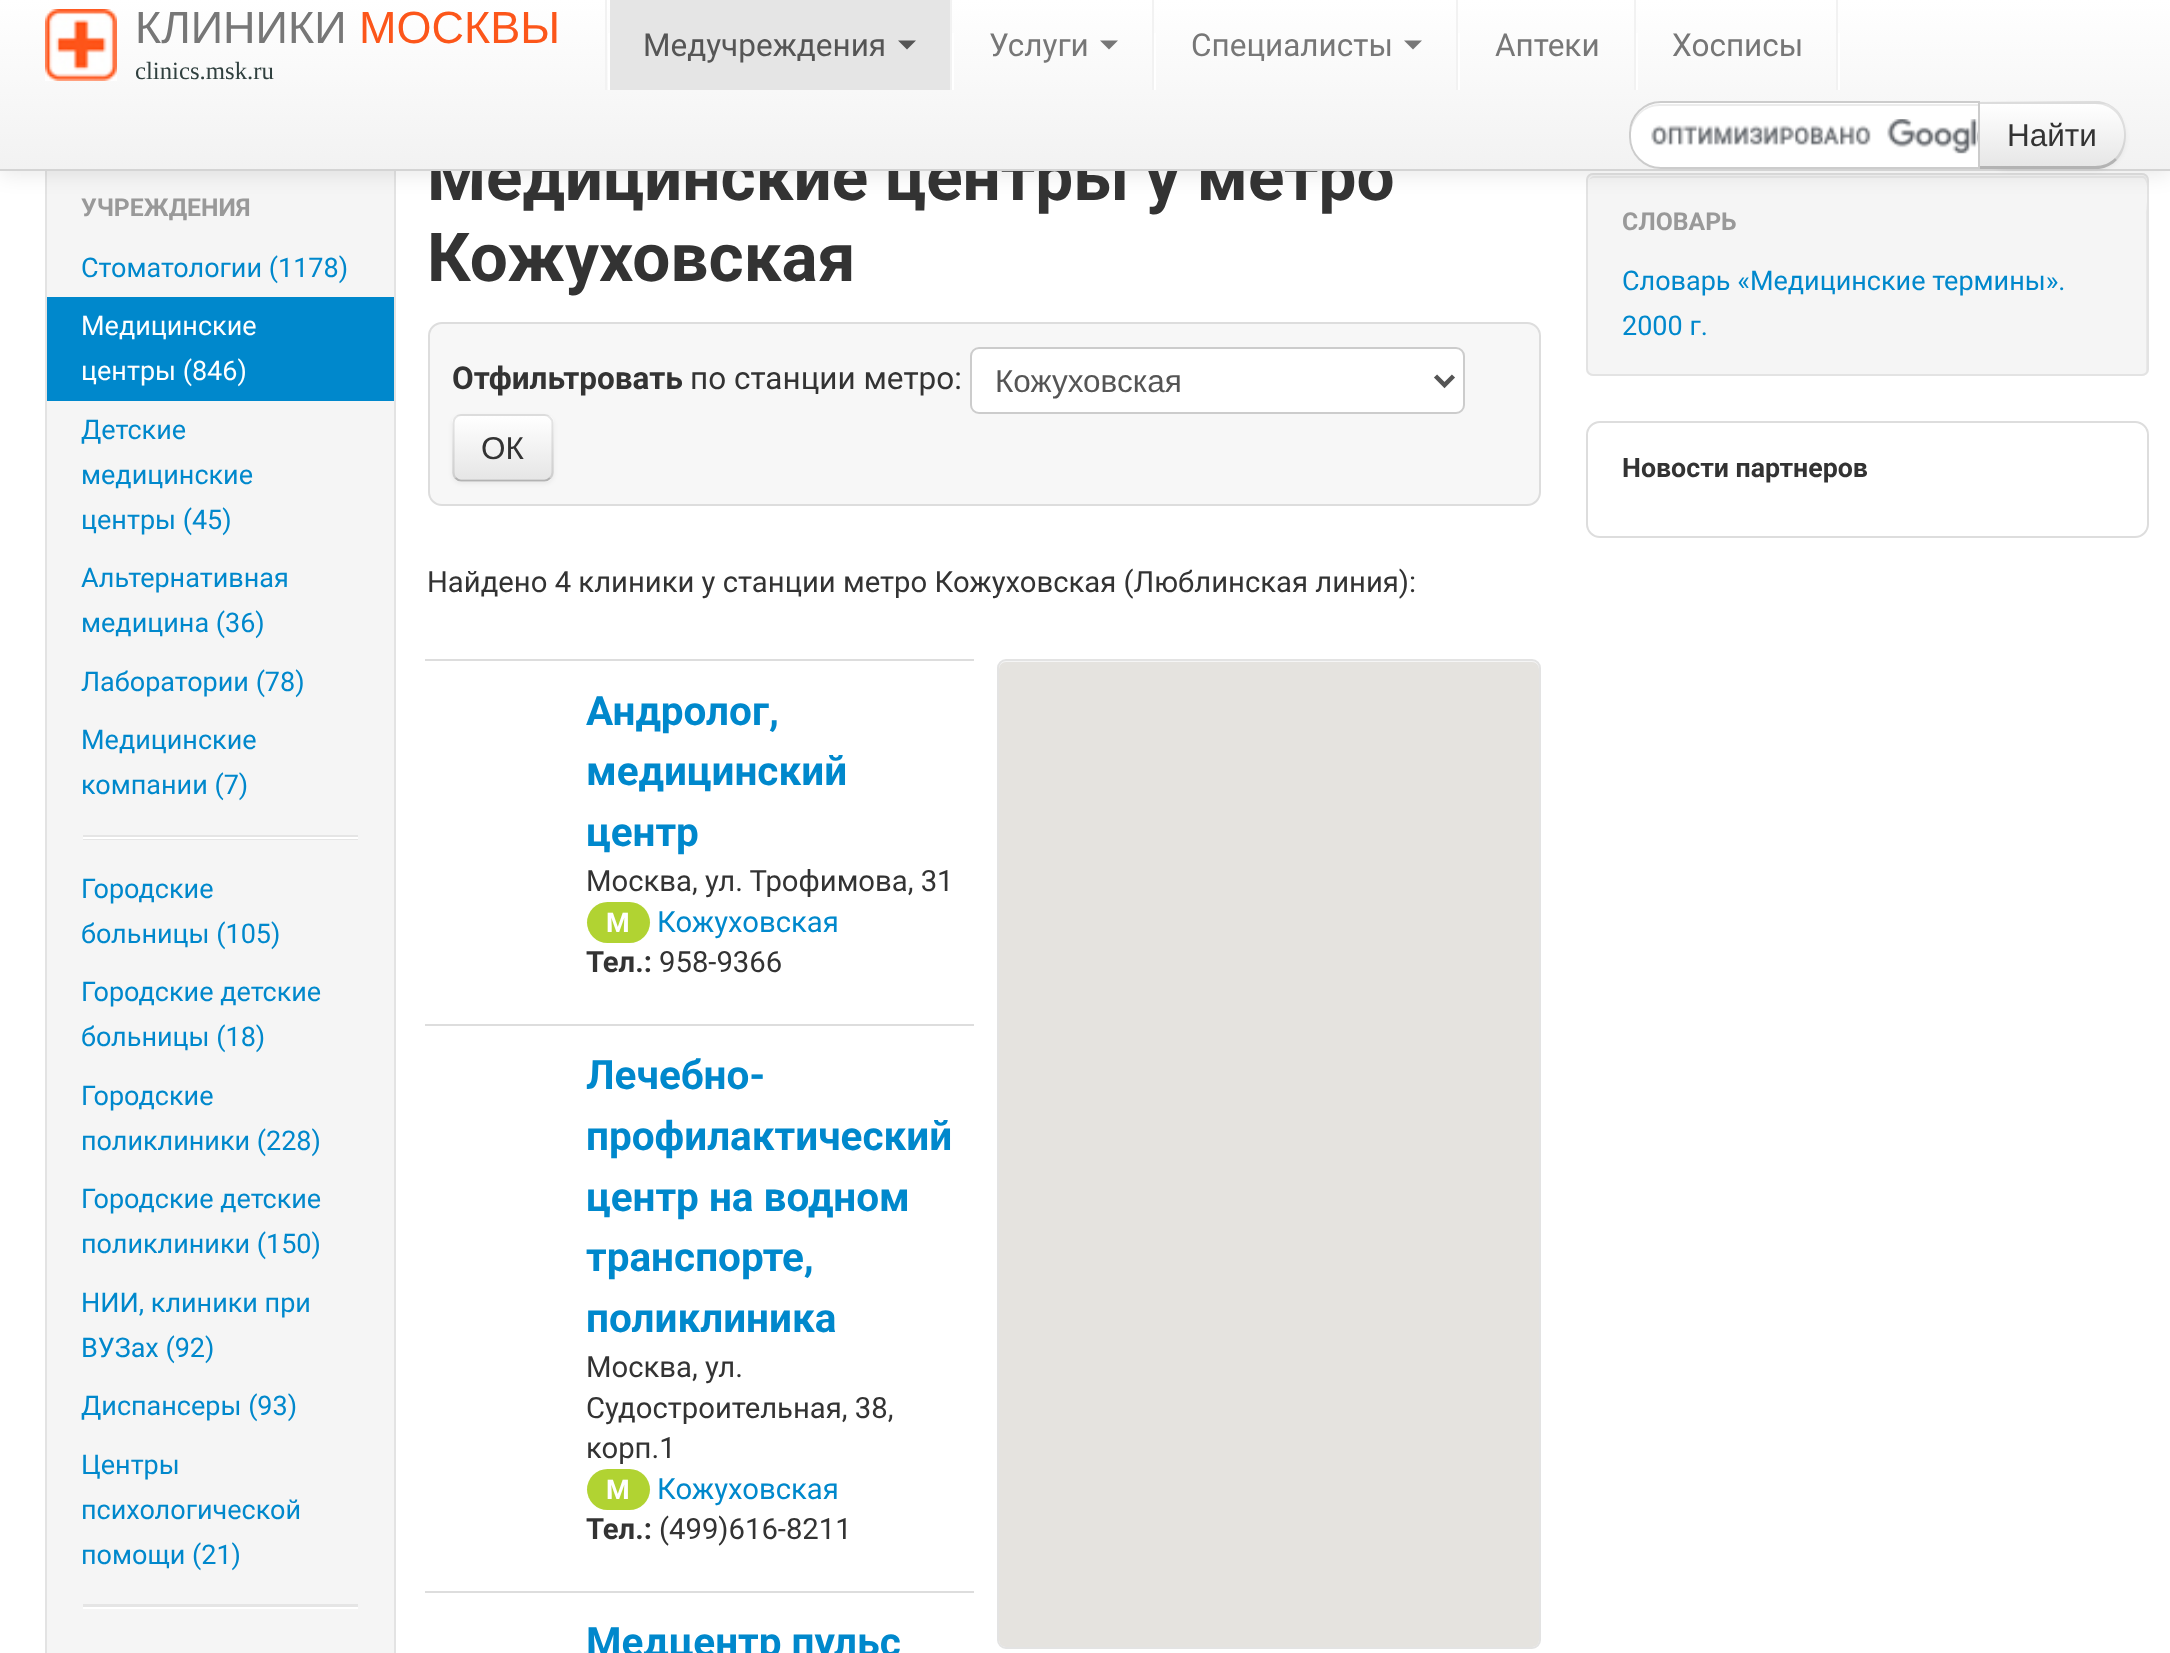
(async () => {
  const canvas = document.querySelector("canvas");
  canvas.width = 2170;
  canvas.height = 1653;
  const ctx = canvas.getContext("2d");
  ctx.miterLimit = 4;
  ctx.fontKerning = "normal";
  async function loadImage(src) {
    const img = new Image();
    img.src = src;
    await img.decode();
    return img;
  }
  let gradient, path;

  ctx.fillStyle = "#ffffff";
  ctx.fillRect(0, 0, 2170, 1653);
  ctx.fillStyle = "#f5f5f5";
  ctx.fillRect(47, 171, 347, 1482);
  ctx.strokeStyle = "#e3e3e3";
  ctx.lineWidth = 2;
  ctx.strokeRect(46, 116, 349, 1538);
  ctx.beginPath();
  ctx.roundRect(1586, 173, 563, 203, 7);
  ctx.fill();
  ctx.fillStyle = "#e9e9e9";
  path = new Path2D("M1593 178H2142C2151 178 2146 210 2146 214V372C2147 371 2147 370 2147 369V181C2147 178 2145 176 2142 176H1594C1592 176 1590 178 1589 180C1590 179 1592 178 1593 178Z");
  ctx.fill(path);
  ctx.beginPath();
  ctx.roundRect(1587, 174, 561, 201, 6);
  ctx.stroke();
  ctx.fillStyle = "rgba(0, 0, 0, 0.1)";
  ctx.filter = "blur(11px)";
  ctx.beginPath();
  ctx.rect(0, 2, 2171, 171);
  ctx.fill();
  ctx.filter = "none";
  for (const [x, y, w, h, color] of [
    [47, 297, 347, 104, "#0088cc"],
    [83, 835, 275, 5, "#e5e5e5"],
    [83, 837, 275, 2, "#ffffff"],
    [83, 1604, 275, 3, "#e5e5e5"],
    [83, 1607, 275, 2, "#ffffff"],
  ]) {
    ctx.fillStyle = color;
    ctx.fillRect(x, y, w, h);
  }
  ctx.fillStyle = "#f7f7f7";
  ctx.beginPath();
  ctx.roundRect(429, 323, 1111, 182, 13);
  ctx.fill();
  ctx.strokeStyle = "#dddddd";
  ctx.stroke();
  ctx.fillStyle = "#ffffff";
  ctx.beginPath();
  ctx.roundRect(971, 348, 493, 65, 8);
  ctx.fill();
  ctx.strokeStyle = "#cccccc";
  ctx.stroke();
  path = new Path2D("M1435.5 376L1444.5 385L1453.5 376");
  ctx.strokeStyle = "#555555";
  ctx.lineWidth = 4.5;
  ctx.stroke(path);
  ctx.fillStyle = "rgba(0, 0, 0, 0.05)";
  ctx.filter = "blur(2px)";
  ctx.beginPath();
  ctx.roundRect(452, 416, 102, 68, 9);
  ctx.fill();
  ctx.filter = "none";
  ctx.fillStyle = "#f5f5f5";
  ctx.beginPath();
  ctx.roundRect(452, 414, 102, 68, 9);
  ctx.fill();
  ctx.save();
  ctx.beginPath();
  ctx.roundRect(452, 414, 102, 68, 9);
  ctx.clip();
  gradient = ctx.createLinearGradient(503, 416, 503, 479);
  gradient.addColorStop(0, "#ffffff");
  gradient.addColorStop(1, "#e6e6e6");
  ctx.fillStyle = gradient;
  ctx.fillRect(452, 416, 102, 63);
  ctx.restore();
  path = new Path2D("M550 478C548.5 479.5 546.5 480.5 544.5 480.5H461C459 480.5 457 479.5 455.5 478");
  ctx.strokeStyle = "#b3b3b3";
  ctx.lineWidth = 2.2;
  ctx.stroke(path);
  path = new Path2D("M455.5 478C454 476.5 453.5 474.5 453.5 472.5V423C453.5 421 454 419 455.5 417.5C457 416 459 415 461 415H544.5C546.5 415 548.5 416 550 417.5C551.5 419 552.5 421 552.5 423V472.5C552.5 474.5 551.5 476.5 550 478");
  ctx.strokeStyle = "rgba(0, 0, 0, 0.1)";
  ctx.stroke(path);
  ctx.fillStyle = "#dddddd";
  ctx.fillRect(425, 659, 549, 2);
  ctx.fillStyle = "#b1d332";
  ctx.beginPath();
  ctx.roundRect(587, 902, 63, 41, 20.5);
  ctx.fill();
  ctx.fillStyle = "#dddddd";
  ctx.fillRect(425, 1024, 549, 2);
  ctx.fillStyle = "#b1d332";
  ctx.beginPath();
  ctx.roundRect(587, 1469, 63, 41, 20.5);
  ctx.fill();
  ctx.fillStyle = "#dddddd";
  ctx.fillRect(425, 1591, 549, 2);
  ctx.fillStyle = "#f5f5f5";
  ctx.beginPath();
  ctx.roundRect(998, 660, 542, 988, 8);
  ctx.fill();
  ctx.strokeStyle = "#e3e3e3";
  ctx.lineWidth = 2;
  ctx.stroke();
  ctx.fillStyle = "#e5e3df";
  ctx.beginPath();
  ctx.roundRect(999, 662, 540, 985, 7);
  ctx.fill();
  ctx.beginPath();
  ctx.roundRect(1587, 422, 561, 115, 13);
  ctx.strokeStyle = "#dddddd";
  ctx.stroke();
  ctx.font = "bold 24.75px Roboto";
  ctx.fillStyle = "#999999";
  ctx.fillText("УЧРЕЖДЕНИЯ", 81, 216);
  ctx.font = "27px Roboto";
  ctx.fillStyle = "#0088cc";
  ctx.fillText("Стоматологии (1178)", 81, 277);
  ctx.fillStyle = "#ffffff";
  ctx.fillText("Медицинские", 81, 335);
  ctx.fillText("центры (846)", 81, 380);
  ctx.fillStyle = "#0088cc";
  for (const [text, x, y] of [
    ["Детские", 81, 439],
    ["медицинские", 81, 484],
    ["центры (45)", 81, 529],
    ["Альтернативная", 81, 587],
    ["медицина (36)", 81, 632],
    ["Лаборатории (78)", 81, 691],
    ["Медицинские", 81, 749],
    ["компании (7)", 81, 794],
    ["Городские", 81, 898],
    ["больницы (105)", 81, 943],
    ["Городские детские", 81, 1001],
    ["больницы (18)", 81, 1046],
    ["Городские", 81, 1105],
    ["поликлиники (228)", 81, 1150],
    ["Городские детские", 81, 1208],
    ["поликлиники (150)", 81, 1253],
    ["НИИ, клиники при", 81, 1312],
    ["ВУЗах (92)", 81, 1357],
    ["Диспансеры (93)", 81, 1415],
    ["Центры", 81, 1474],
    ["психологической", 81, 1519],
    ["помощи (21)", 81, 1564],
  ]) {
    ctx.fillText(text, x, y);
  }
  ctx.font = "bold 67.5px Roboto";
  ctx.fillStyle = "#333333";
  ctx.fillText("Медицинские центры у метро", 427, 200);
  ctx.fillStyle = "#d4d4d4";
  ctx.fillRect(0, 169, 2170, 2);
  gradient = ctx.createLinearGradient(1086, 0, 1086, 169);
  gradient.addColorStop(0, "#ffffff");
  gradient.addColorStop(1, "#f2f2f2");
  ctx.fillStyle = gradient;
  ctx.fillRect(0, 0, 2170, 169);
  ctx.fillStyle = "rgba(0, 0, 0, 0.05)";
  ctx.filter = "blur(2px)";
  ctx.beginPath();
  ctx.roundRect(1978, 104, 148, 67, 32);
  ctx.fill();
  ctx.filter = "none";
  ctx.fillStyle = "#f5f5f5";
  ctx.beginPath();
  ctx.roundRect(1978, 101, 148, 68, [0, 32, 32, 0]);
  ctx.fill();
  ctx.save();
  ctx.beginPath();
  ctx.roundRect(1978, 101, 148, 68, [0, 32, 32, 0]);
  ctx.clip();
  gradient = ctx.createLinearGradient(2052, 104, 2052, 167);
  gradient.addColorStop(0, "#ffffff");
  gradient.addColorStop(1, "#e6e6e6");
  ctx.fillStyle = gradient;
  ctx.fillRect(1980, 104, 146, 63);
  ctx.restore();
  ctx.fillStyle = "rgba(0, 0, 0, 0.1)";
  path = new Path2D("M1978 102L2099 101C2106 102 2112 105 2117 110L2115 112C2110 107 2103 104 2095 104H1980Z");
  ctx.fill(path);
  path = new Path2D("M2117 110C2129 123 2129 147 2117 160L2115 158C2127 146 2127 124 2115 112Z");
  ctx.fill(path);
  ctx.fillStyle = "#b3b3b3";
  path = new Path2D("M1978 169L1980 166H2095C2103 166 2110 163 2115 158L2117 160C2112 165 2106 168 2099 169Z");
  ctx.fill(path);
  ctx.fillStyle = "#ffffff";
  ctx.beginPath();
  ctx.roundRect(1629, 101, 351, 68, [32, 0, 0, 32]);
  ctx.fill();
  ctx.drawImage(await loadImage("img/2.png"), 1651, 119, 327, 35);
  ctx.fillStyle = "#ececec";
  path = new Path2D("M1660 106H1978V104H1660C1644 104 1631 117 1631 133C1633 119 1643 106 1660 106Z");
  ctx.fill(path);
  ctx.beginPath();
  ctx.roundRect(1630, 102, 349, 66, [31, 0, 0, 31]);
  ctx.strokeStyle = "#cccccc";
  ctx.stroke();
  ctx.font = "31.5px Liberation Sans";
  ctx.fillStyle = "#333333";
  ctx.fillText("Найти", 2007, 146);
  ctx.fillStyle = "#777777";
  path = new Path2D("M1404 40.5H1422L1413 49.5Z");
  ctx.fill(path);
  ctx.font = "31.5px Roboto";
  ctx.fillText("Специалисты", 1191, 56);
  path = new Path2D("M1100 40.5H1118L1109 49.5Z");
  ctx.fill(path);
  ctx.fillText("Услуги", 989, 56);
  ctx.fillStyle = "#e5e5e5";
  ctx.fillRect(610, 0, 340, 90);
  ctx.fillStyle = "#555555";
  path = new Path2D("M898 40.5H916L907 49.5Z");
  ctx.fill(path);
  ctx.fillText("Медучреждения", 643, 56);
  ctx.fillStyle = "#f2f2f2";
  ctx.fillRect(1836, 0, 2, 90);
  ctx.fillStyle = "#ffffff";
  ctx.fillRect(1838, 33, 2, 57);
  ctx.fillStyle = "#777777";
  ctx.fillText("Хосписы", 1672, 56);
  ctx.fillStyle = "#f2f2f2";
  ctx.fillRect(1634, 0, 2, 90);
  ctx.fillStyle = "#ffffff";
  ctx.fillRect(1636, 33, 2, 57);
  ctx.fillStyle = "#777777";
  ctx.fillText("Аптеки", 1495, 56);
  for (const [x, y, w, h, color] of [
    [1456, 0, 2, 90, "#f2f2f2"],
    [1458, 33, 2, 57, "#ffffff"],
    [1152, 0, 2, 90, "#f2f2f2"],
    [1154, 33, 2, 57, "#ffffff"],
    [950, 0, 2, 90, "#f2f2f2"],
    [952, 33, 2, 57, "#ffffff"],
    [605, 0, 2, 90, "#f2f2f2"],
    [608, 33, 2, 57, "#ffffff"],
  ]) {
    ctx.fillStyle = color;
    ctx.fillRect(x, y, w, h);
  }
  ctx.font = "24.75px Liberation Serif";
  ctx.fillStyle = "#30403f";
  ctx.fillText("clinics.msk.ru", 135, 79);
  ctx.font = "45px Liberation Sans";
  ctx.fillStyle = "#fc561a";
  ctx.fillText("МОСКВЫ", 359, 43);
  ctx.fillStyle = "#777777";
  ctx.fillText("КЛИНИКИ", 135, 43);
  ctx.drawImage(await loadImage("img/1.png"), 45, 9, 72, 72);
  ctx.font = "bold 67.5px Roboto";
  ctx.fillStyle = "#333333";
  ctx.fillText("Кожуховская", 427, 281);
  ctx.font = "bold 31.5px Roboto";
  ctx.fillText("Отфильтровать", 452, 389);
  ctx.font = "31.5px Roboto";
  ctx.fillText("по станции метро:", 690, 389);
  ctx.font = "31.5px Liberation Sans";
  ctx.fillStyle = "#555555";
  ctx.fillText("Кожуховская", 995, 392);
  ctx.fillStyle = "#333333";
  ctx.fillText("ОК", 481, 459);
  ctx.font = "29.25px Roboto";
  ctx.fillText("Найдено 4 клиники у станции метро Кожуховская (Люблинская линия):", 427, 592);
  ctx.font = "bold 40.5px Roboto";
  ctx.fillStyle = "#0088cc";
  for (const [text, x, y] of [
    ["Андролог,", 586, 725],
    ["медицинский", 586, 785],
    ["центр", 586, 846],
  ]) {
    ctx.fillText(text, x, y);
  }
  ctx.font = "29.25px Roboto";
  ctx.fillStyle = "#333333";
  ctx.fillText("Москва, ул. Трофимова, 31", 586, 891);
  ctx.font = "bold 27px Roboto";
  ctx.fillStyle = "#ffffff";
  ctx.fillText("М", 606, 932);
  ctx.font = "29.25px Roboto";
  ctx.fillStyle = "#0088cc";
  ctx.fillText("Кожуховская", 657, 932);
  ctx.font = "bold 29.25px Roboto";
  ctx.fillStyle = "#333333";
  ctx.fillText("Тел.:", 586, 972);
  ctx.font = "29.25px Roboto";
  ctx.fillText("958-9366", 659, 972);
  ctx.font = "bold 40.5px Roboto";
  ctx.fillStyle = "#0088cc";
  for (const [text, x, y] of [
    ["Лечебно-", 586, 1089],
    ["профилактический", 586, 1150],
    ["центр на водном", 586, 1211],
    ["транспорте,", 586, 1271],
    ["поликлиника", 586, 1332],
  ]) {
    ctx.fillText(text, x, y);
  }
  ctx.font = "29.25px Roboto";
  ctx.fillStyle = "#333333";
  for (const [text, x, y] of [
    ["Москва, ул.", 586, 1377],
    ["Судостроительная, 38,", 586, 1418],
    ["корп.1", 586, 1458],
  ]) {
    ctx.fillText(text, x, y);
  }
  ctx.font = "bold 27px Roboto";
  ctx.fillStyle = "#ffffff";
  ctx.fillText("М", 606, 1499);
  ctx.font = "29.25px Roboto";
  ctx.fillStyle = "#0088cc";
  ctx.fillText("Кожуховская", 657, 1499);
  ctx.font = "bold 29.25px Roboto";
  ctx.fillStyle = "#333333";
  ctx.fillText("Тел.:", 586, 1539);
  ctx.font = "29.25px Roboto";
  ctx.fillText("(499)616-8211", 659, 1539);
  ctx.font = "bold 40.5px Roboto";
  ctx.fillStyle = "#0088cc";
  ctx.fillText("Медцентр пульс", 586, 1656);
  ctx.font = "bold 24.75px Roboto";
  ctx.fillStyle = "#999999";
  ctx.fillText("СЛОВАРЬ", 1622, 230);
  ctx.font = "27px Roboto";
  ctx.fillStyle = "#0088cc";
  ctx.fillText("Словарь «Медицинские термины».", 1622, 290);
  ctx.fillText("2000 г.", 1622, 335);
  ctx.font = "bold 26.75px Roboto";
  ctx.fillStyle = "#333333";
  ctx.fillText("Новости партнеров", 1622, 477);
})();
